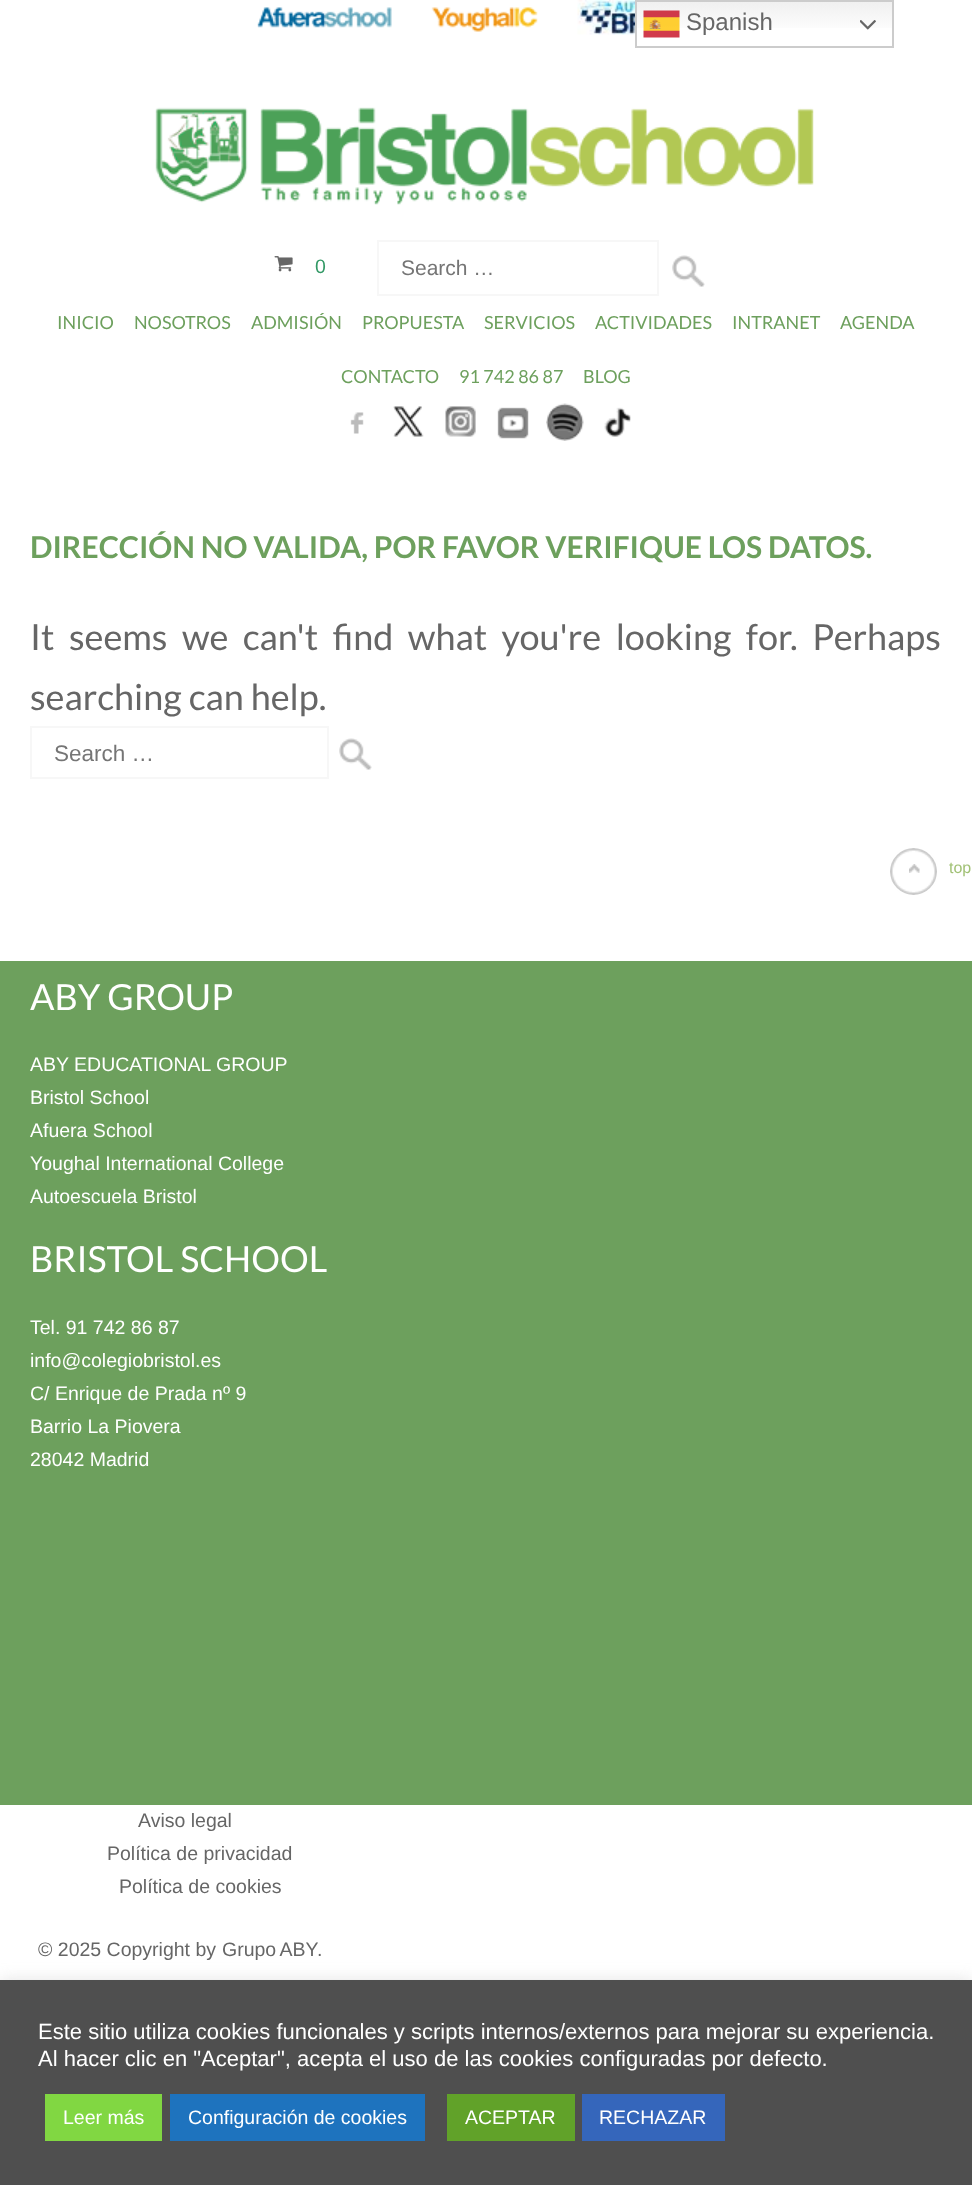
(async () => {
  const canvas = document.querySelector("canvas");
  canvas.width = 972;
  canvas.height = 2185;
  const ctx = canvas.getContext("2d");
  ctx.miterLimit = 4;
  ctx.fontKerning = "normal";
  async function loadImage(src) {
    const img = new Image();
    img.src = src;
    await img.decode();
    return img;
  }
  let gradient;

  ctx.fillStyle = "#ffffff";
  ctx.fillRect(0, 0, 972, 2185);
  gradient = ctx.createLinearGradient(764, 0, 764, 48);
  gradient.addColorStop(0, "#efefef");
  gradient.addColorStop(0.7, "#ffffff");
  ctx.fillStyle = gradient;
  ctx.fillRect(637, 2, 255, 26);
  ctx.strokeStyle = "#cccccc";
  ctx.lineWidth = 2;
  ctx.strokeRect(636, 1, 257, 46);
  ctx.drawImage(await loadImage("img/1.png"), 643, 10, 37, 28);
  ctx.drawImage(await loadImage("img/2.png"), 860, 20, 16, 10);
  ctx.drawImage(await loadImage("img/3.png"), 257, 7, 135, 21);
  ctx.drawImage(await loadImage("img/4.png"), 431, 7, 107, 25);
  ctx.drawImage(await loadImage("img/5.png"), 577, 0, 58, 35);
  ctx.drawImage(await loadImage("img/6.png"), 155, 107, 659, 98);
  ctx.drawImage(await loadImage("img/7.png"), 274, 256, 19, 16);
  ctx.strokeStyle = "#f7f7f7";
  ctx.strokeRect(378, 241, 280, 54);
  ctx.drawImage(await loadImage("img/8.png"), 672, 255, 33, 32);
  ctx.drawImage(await loadImage("img/9.png"), 350, 412, 14, 22);
  ctx.drawImage(await loadImage("img/10.png"), 393, 406, 31, 31);
  ctx.drawImage(await loadImage("img/11.png"), 445, 406, 31, 31);
  ctx.drawImage(await loadImage("img/12.png"), 497, 407, 32, 32);
  ctx.drawImage(await loadImage("img/13.png"), 546, 403, 38, 38);
  ctx.drawImage(await loadImage("img/14.png"), 604, 407, 27, 30);
  ctx.strokeRect(31, 727, 297, 51);
  ctx.drawImage(await loadImage("img/15.png"), 339, 738, 33, 32);
  ctx.drawImage(await loadImage("img/16.png"), 889, 847, 49, 49);
  ctx.beginPath();
  ctx.arc(913.5, 871.5, 24.5, 0, Math.PI * 2);
  ctx.strokeStyle = "#ffffff";
  ctx.stroke();
  ctx.drawImage(await loadImage("img/17.png"), 909, 864, 11, 9);
  ctx.fillStyle = "#6da05d";
  ctx.fillRect(0, 961, 972, 844);
  ctx.fillStyle = "rgba(172, 171, 171, 0.3)";
  ctx.filter = "blur(7.5px)";
  ctx.beginPath();
  ctx.rect(0, 1979, 972, 205);
  ctx.fill();
  ctx.filter = "none";
  for (const [x, y, w, h, color] of [
    [0, 1980, 972, 205, "#4f4f4f"],
    [45, 2094, 117, 47, "#81d742"],
    [170, 2094, 255, 47, "#1e73be"],
    [447, 2094, 128, 47, "#61a229"],
    [582, 2094, 143, 47, "#3566bb"],
  ]) {
    ctx.fillStyle = color;
    ctx.fillRect(x, y, w, h);
  }
  ctx.font = "24px Liberation Sans";
  ctx.fillStyle = "#666666";
  ctx.fillText("Spanish", 686, 30);
  ctx.font = "19.5px Liberation Sans";
  ctx.fillStyle = "#339966";
  ctx.fillText("0", 315, 273);
  ctx.font = "21px Liberation Sans";
  ctx.fillStyle = "#757575";
  ctx.fillText("Search …", 401, 275);
  ctx.font = "18px Lato";
  ctx.fillStyle = "#6da05d";
  for (const [text, x, y] of [
    ["INICIO", 57, 329],
    ["NOSOTROS", 134, 329],
    ["ADMISIÓN", 251, 329],
    ["PROPUESTA", 362, 329],
    ["SERVICIOS", 484, 329],
    ["ACTIVIDADES", 595, 329],
    ["INTRANET", 732, 329],
    ["AGENDA", 840, 329],
    ["CONTACTO", 341, 383],
    ["91 742 86 87", 459, 383],
    ["BLOG", 583, 383],
  ]) {
    ctx.fillText(text, x, y);
  }
  ctx.font = "bold 30px Lato";
  ctx.fillText("DIRECCIÓN NO VALIDA, POR FAVOR VERIFIQUE LOS DATOS.", 30, 558);
  ctx.wordSpacing = "7.5px";
  ctx.font = "36px Lato";
  ctx.fillStyle = "#666666";
  ctx.fillText("It seems we can't find what you're looking for. Perhaps", 30, 650);
  ctx.wordSpacing = "0px";
  ctx.fillText("searching can help.", 30, 710);
  ctx.font = "22.5px Liberation Sans";
  ctx.fillStyle = "#757575";
  ctx.fillText("Search …", 54, 761);
  ctx.font = "16px Liberation Sans";
  ctx.fillStyle = "#a1c175";
  ctx.fillText("top", 949, 873);
  ctx.font = "36px Lato";
  ctx.fillStyle = "#ffffff";
  ctx.fillText("ABY GROUP", 30, 1010);
  ctx.font = "19.5px Liberation Sans";
  for (const [text, x, y] of [
    ["ABY EDUCATIONAL GROUP", 30, 1071],
    ["Bristol School", 30, 1104],
    ["Afuera School", 30, 1137],
    ["Youghal International College", 30, 1170],
    ["Autoescuela Bristol", 30, 1203],
  ]) {
    ctx.fillText(text, x, y);
  }
  ctx.font = "36px Lato";
  ctx.fillText("BRISTOL SCHOOL", 30, 1272);
  ctx.font = "19.5px Liberation Sans";
  for (const [text, x, y] of [
    ["Tel. 91 742 86 87", 30, 1334],
    ["info@colegiobristol.es", 30, 1367],
    ["C/ Enrique de Prada nº 9", 30, 1400],
    ["Barrio La Piovera", 30, 1433],
    ["28042 Madrid", 30, 1466],
  ]) {
    ctx.fillText(text, x, y);
  }
  ctx.fillStyle = "#666666";
  for (const [text, x, y] of [
    ["Aviso legal", 138, 1827],
    ["Política de privacidad", 107, 1860],
    ["Política de cookies", 119, 1893],
    ["© 2025 Copyright by", 38, 1956],
  ]) {
    ctx.fillText(text, x, y);
  }
  ctx.wordSpacing = "-1px";
  ctx.fillText("Grupo ABY", 222, 1956);
  ctx.wordSpacing = "0px";
  ctx.fillText(".", 317, 1956);
  ctx.font = "22px Liberation Sans";
  ctx.fillStyle = "#ffffff";
  ctx.fillText("Este sitio utiliza cookies funcionales y scripts internos/externos para mejorar su experiencia.", 38, 2039);
  ctx.fillText("Al hacer clic en \"Aceptar\", acepta el uso de las cookies configuradas por defecto.", 38, 2066);
  ctx.font = "19.5px Liberation Sans";
  for (const [text, x, y] of [
    ["Leer más", 63, 2124],
    ["Configuración de cookies", 188, 2124],
    ["ACEPTAR", 465, 2124],
    ["RECHAZAR", 599, 2124],
  ]) {
    ctx.fillText(text, x, y);
  }
})();
